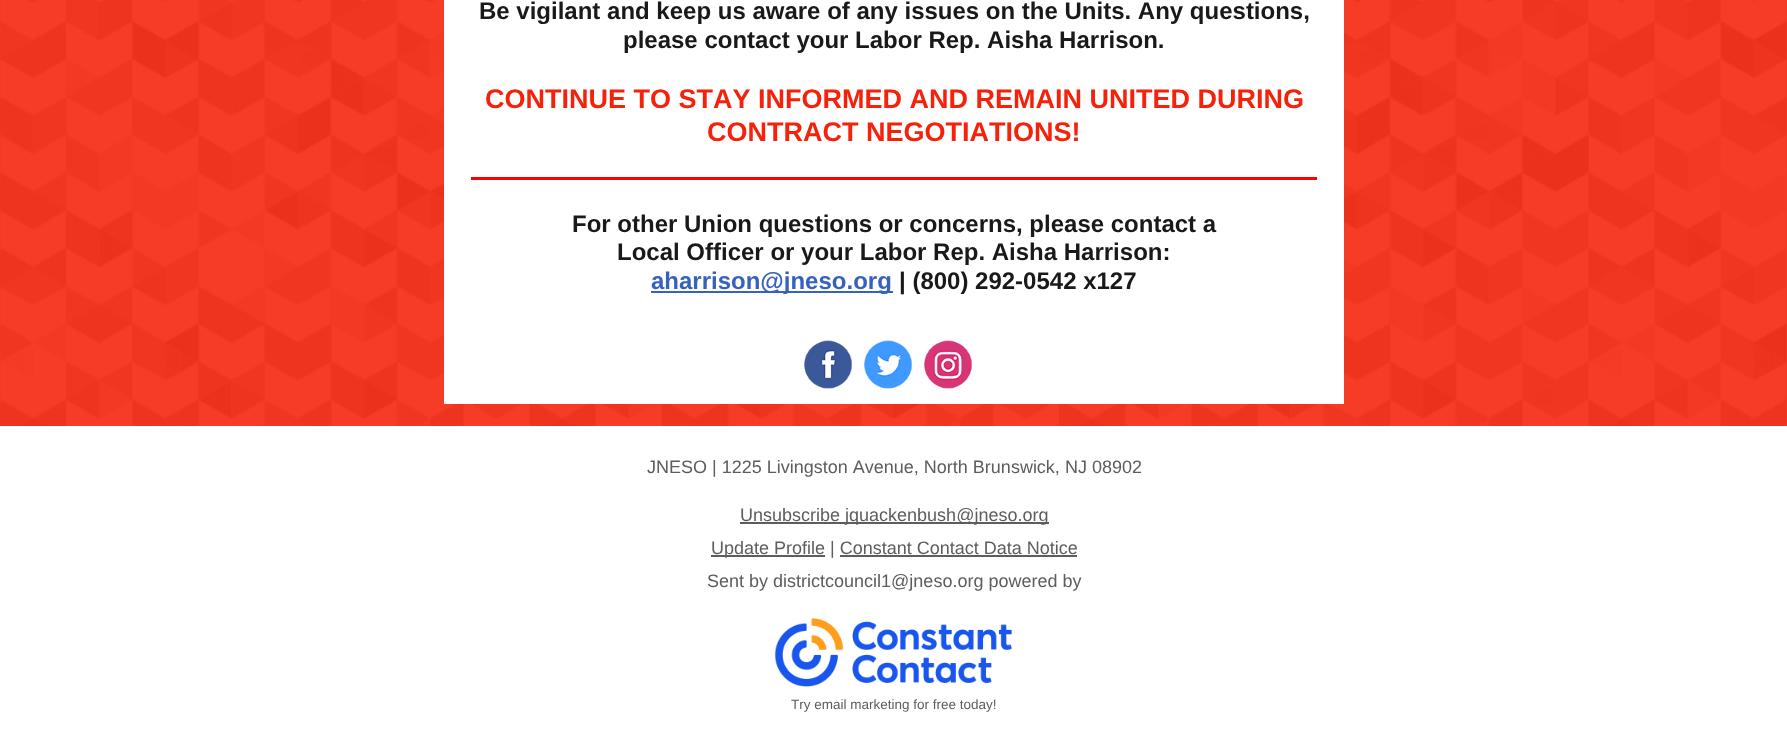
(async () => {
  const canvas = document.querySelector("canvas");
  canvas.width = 1787;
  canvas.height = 748;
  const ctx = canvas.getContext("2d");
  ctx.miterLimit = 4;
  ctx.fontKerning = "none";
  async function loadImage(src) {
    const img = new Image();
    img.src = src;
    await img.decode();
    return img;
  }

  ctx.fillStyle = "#f6210a";
  ctx.fillRect(0, 0, 1787, 748);
  ctx.drawImage(await loadImage("img/1.png"), 0, 0, 1787, 426);
  for (const [x, y, w, h, color] of [
    [444, 0, 900, 404, "#ffffff"],
    [471, 177, 846, 3, "#ff0000"],
    [651, 291, 242, 2, "#3661bd"],
  ]) {
    ctx.fillStyle = color;
    ctx.fillRect(x, y, w, h);
  }
  ctx.drawImage(await loadImage("img/2.png"), 804, 340, 48, 49);
  ctx.drawImage(await loadImage("img/3.png"), 864, 340, 48, 49);
  ctx.drawImage(await loadImage("img/4.png"), 924, 340, 48, 49);
  for (const [x, y, w, h, color] of [
    [0, 426, 1787, 322, "#ffffff"],
    [740, 522, 309, 2, "#5d5d5d"],
    [711, 555, 114, 2, "#5d5d5d"],
    [840, 555, 237, 2, "#5d5d5d"],
  ]) {
    ctx.fillStyle = color;
    ctx.fillRect(x, y, w, h);
  }
  ctx.drawImage(await loadImage("img/5.png"), 774, 618, 238, 69);
  ctx.font = "bold 24px Liberation Sans";
  ctx.fillStyle = "#191919";
  ctx.fillText("Be vigilant and keep us aware of any issues on the Units. Any questions,", 479, 19);
  ctx.fillText("please contact your Labor Rep. Aisha Harrison.", 623, 48);
  ctx.font = "bold 27px Liberation Sans";
  ctx.fillStyle = "#f6210a";
  ctx.fillText("CONTINUE TO STAY", 485, 108);
  ctx.fillText("INFORMED AND REMAIN UNITED DURING", 758, 108);
  ctx.fillText("CONTRACT NEGOTIATIONS!", 707, 141);
  ctx.font = "bold 24px Liberation Sans";
  ctx.fillStyle = "#191919";
  ctx.fillText("For other Union questions or concerns, please contact a", 572, 232);
  ctx.fillText("Local Officer or your Labor Rep. Aisha Harrison:", 617, 260);
  ctx.fillStyle = "#3661bd";
  ctx.fillText("aharrison@jneso.org", 651, 289);
  ctx.fillStyle = "#191919";
  ctx.fillText("| (800) 292-0542 x127", 899, 289);
  ctx.font = "18px Liberation Sans";
  ctx.fillStyle = "#5d5d5d";
  for (const [text, x, y] of [
    ["JNESO | 1225 Livingston Avenue, North Brunswick, NJ 08902", 647, 473],
    ["Unsubscribe jquackenbush@jneso.org", 740, 521],
    ["Update Profile | Constant Contact Data Notice", 711, 554],
    ["Sent by districtcouncil1@jneso.org powered by", 707, 587],
  ]) {
    ctx.fillText(text, x, y);
  }
  ctx.font = "13.5px Liberation Sans";
  ctx.fillText("Try email marketing for free today!", 791, 709);
})();
